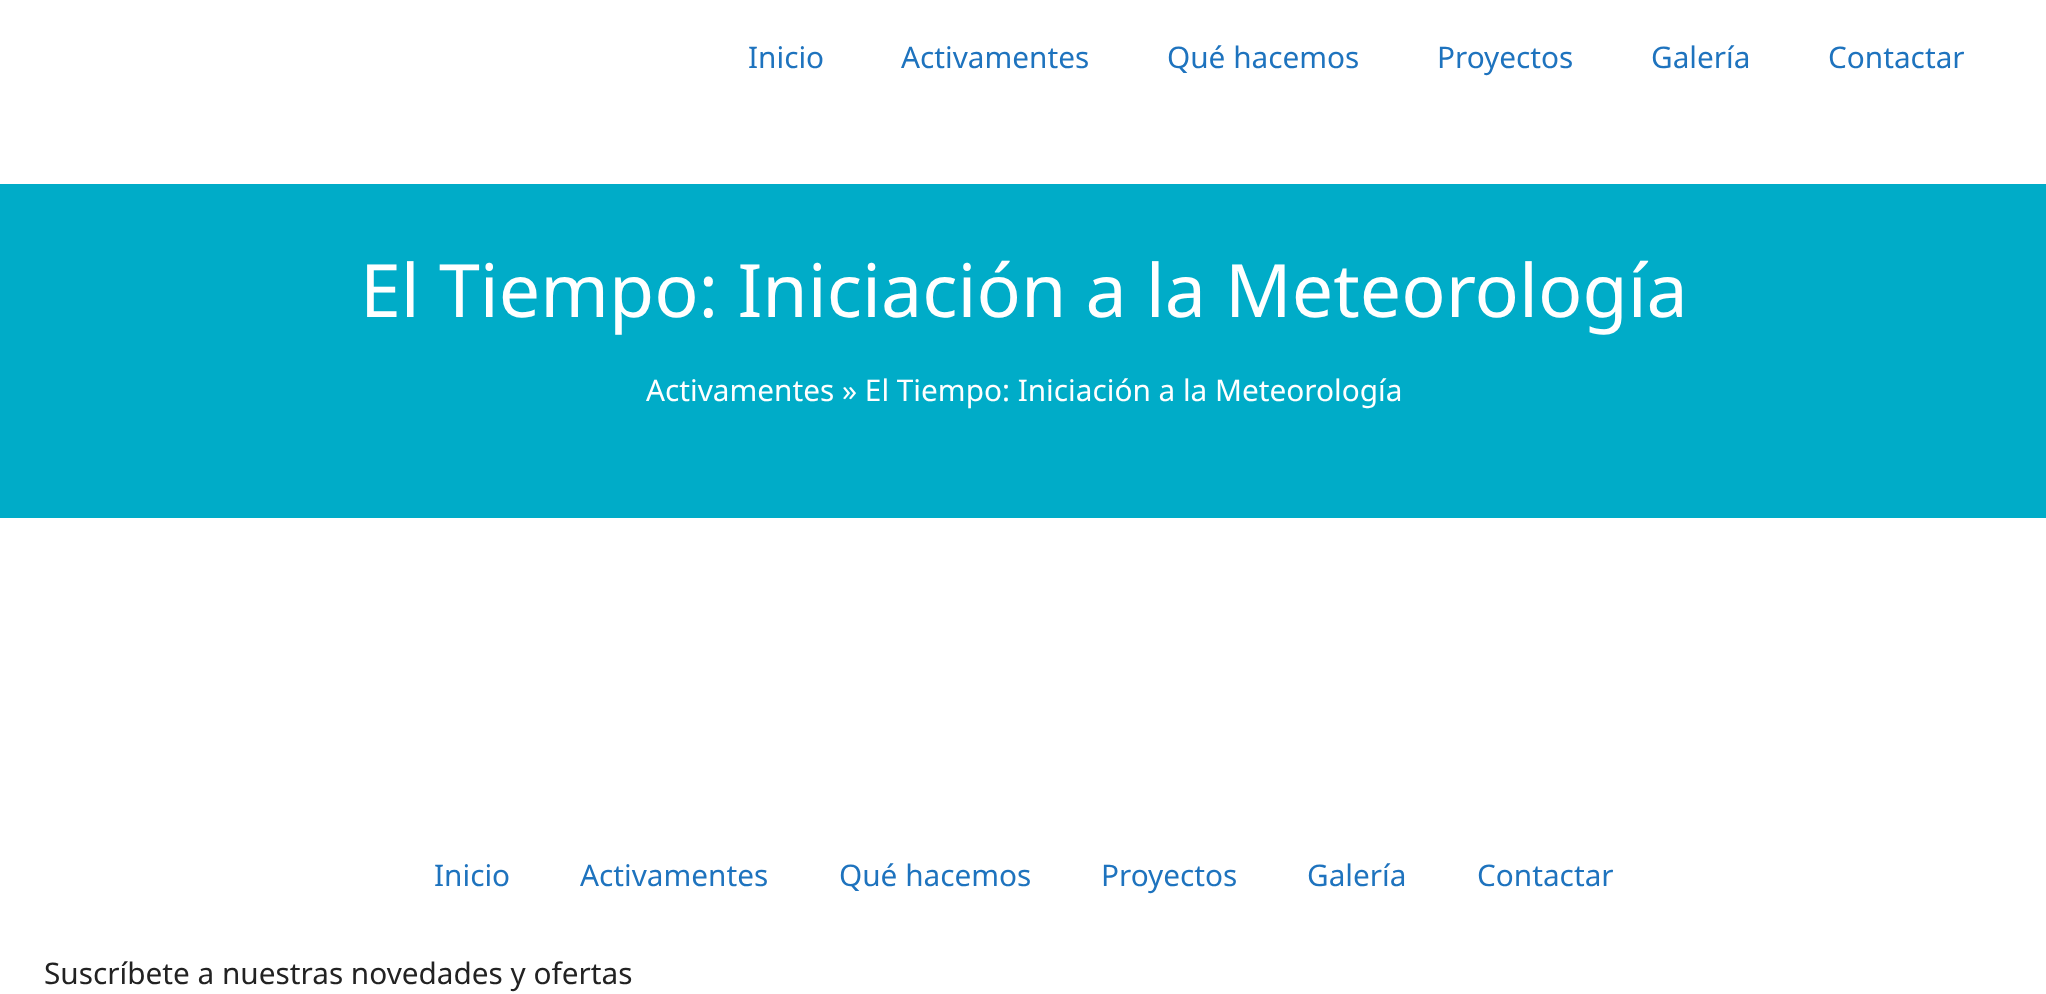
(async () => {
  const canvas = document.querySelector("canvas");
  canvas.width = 2046;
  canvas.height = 994;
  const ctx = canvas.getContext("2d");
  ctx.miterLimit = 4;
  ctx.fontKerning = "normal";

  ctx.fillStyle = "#ffffff";
  ctx.fillRect(0, 0, 2046, 994);
  ctx.fillStyle = "#00acc8";
  ctx.fillRect(0, 184, 2046, 334);
  ctx.font = "29.75px Noto Sans";
  ctx.fillStyle = "#1e73be";
  for (const [text, x, y] of [
    ["Inicio", 748, 68],
    ["Activamentes", 901, 68],
    ["Qué hacemos", 1167, 68],
    ["Proyectos", 1437, 68],
    ["Galería", 1651, 68],
    ["Contactar", 1828, 68],
  ]) {
    ctx.fillText(text, x, y);
  }
  ctx.font = "73.5px Noto Sans";
  ctx.fillStyle = "#ffffff";
  ctx.fillText("El Tiempo: Iniciación a la Meteorología", 360, 317);
  ctx.font = "29.75px Noto Sans";
  ctx.fillText("Activamentes » El Tiempo: Iniciación a la Meteorología", 646, 401);
  ctx.fillStyle = "#1e73be";
  for (const [text, x, y] of [
    ["Inicio", 434, 886],
    ["Activamentes", 580, 886],
    ["Qué hacemos", 839, 886],
    ["Proyectos", 1101, 886],
    ["Galería", 1307, 886],
    ["Contactar", 1477, 886],
  ]) {
    ctx.fillText(text, x, y);
  }
  ctx.fillStyle = "#222222";
  ctx.fillText("Suscríbete a nuestras novedades y ofertas", 44, 984);
})();
